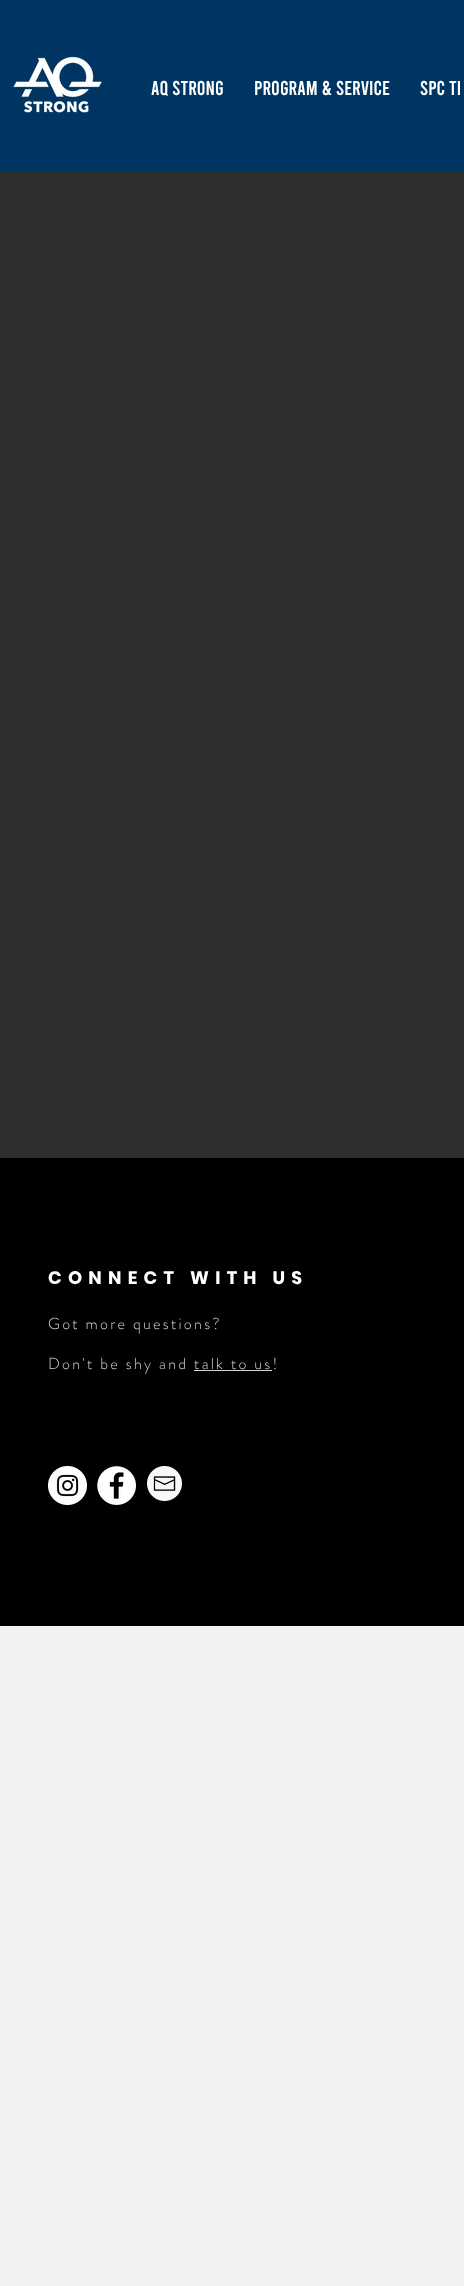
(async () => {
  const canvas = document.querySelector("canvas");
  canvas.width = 464;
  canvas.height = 2286;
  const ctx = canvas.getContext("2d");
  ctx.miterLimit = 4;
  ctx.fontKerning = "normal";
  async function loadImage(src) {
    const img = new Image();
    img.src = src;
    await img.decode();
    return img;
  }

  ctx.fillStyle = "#f2f2f2";
  ctx.fillRect(0, 0, 464, 2286);
  ctx.fillStyle = "#003463";
  ctx.fillRect(0, 0, 464, 172);
  ctx.drawImage(await loadImage("img/1.png"), 13, 56, 89, 57);
  for (const [x, y, w, h, color] of [
    [0, 172, 464, 986, "#2e2e2e"],
    [0, 1158, 464, 468, "#000000"],
    [194, 1370, 78, 1, "#d4d4d4"],
  ]) {
    ctx.fillStyle = color;
    ctx.fillRect(x, y, w, h);
  }
  ctx.drawImage(await loadImage("img/2.png"), 48, 1466, 39, 39);
  ctx.drawImage(await loadImage("img/3.png"), 97, 1466, 39, 39);
  ctx.drawImage(await loadImage("img/4.png"), 147, 1466, 35, 35);
  ctx.font = "20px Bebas";
  ctx.fillStyle = "#ffffff";
  for (const [text, x, y] of [
    ["AQ STRONG", 151, 95],
    ["Program & Service", 254, 95],
    ["SPC Ti", 420, 95],
  ]) {
    ctx.fillText(text, x, y);
  }
  ctx.letterSpacing = "6.25px";
  ctx.font = "bold 18px Poppins";
  ctx.fillText("CONNECT WITH US", 48, 1284);
  ctx.letterSpacing = "2.25px";
  ctx.font = "300 16px 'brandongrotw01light'";
  ctx.fillStyle = "#d4d4d4";
  ctx.fillText("Got more questions?", 48, 1329);
  ctx.fillText("Don't be shy and talk to us!", 48, 1369);
})();
